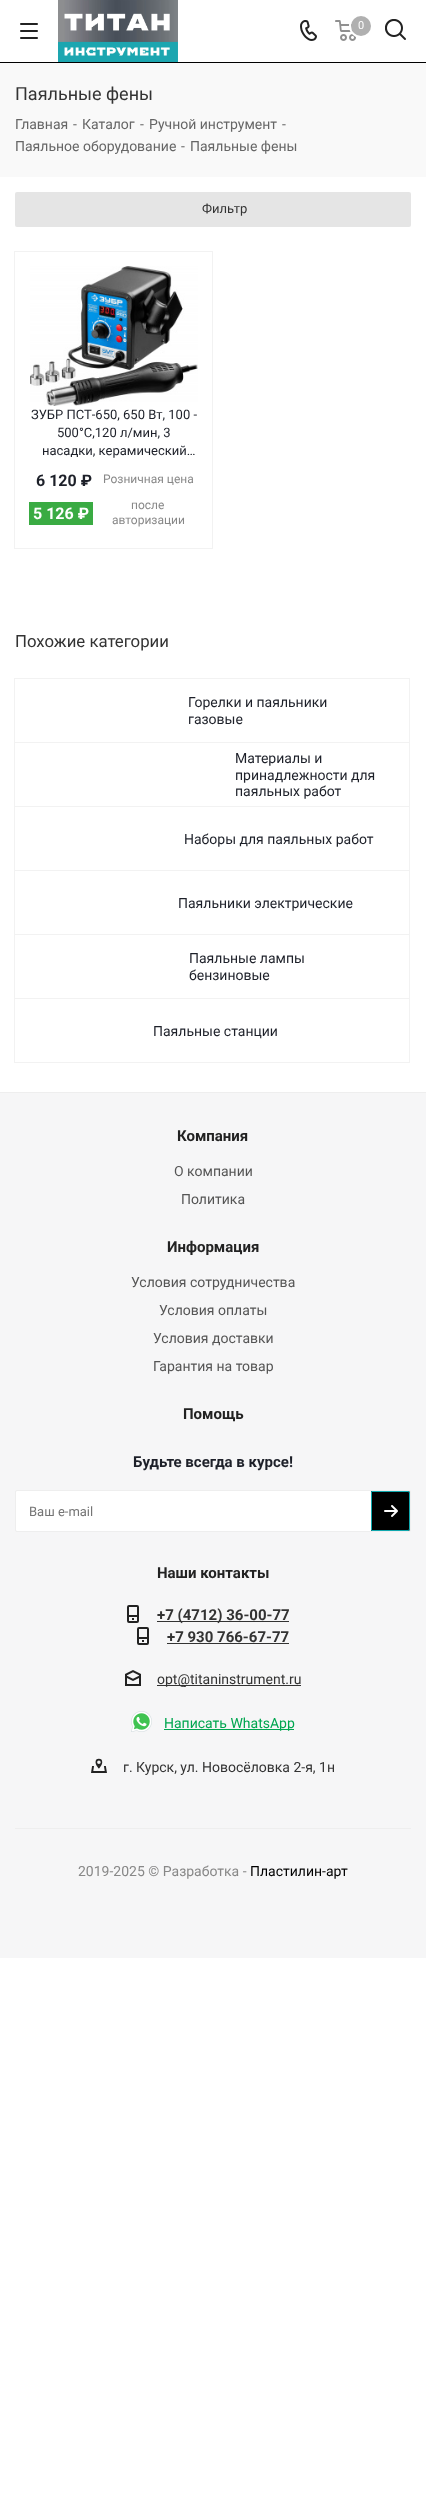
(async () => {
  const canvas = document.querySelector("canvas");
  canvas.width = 426;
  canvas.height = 2506;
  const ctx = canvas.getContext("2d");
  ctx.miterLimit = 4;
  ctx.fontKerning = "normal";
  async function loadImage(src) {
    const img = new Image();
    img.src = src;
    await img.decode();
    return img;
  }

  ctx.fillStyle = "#ffffff";
  ctx.fillRect(0, 0, 426, 2506);
  ctx.fillStyle = "#000000";
  ctx.fillRect(0, 62, 426, 1);
  ctx.drawImage(await loadImage("img/1.png"), 20, 23, 18, 16);
  ctx.drawImage(await loadImage("img/2.png"), 58, 0, 120, 62);
  ctx.drawImage(await loadImage("img/3.png"), 300, 20, 17, 21);
  ctx.drawImage(await loadImage("img/4.png"), 335, 20, 21, 21);
  ctx.beginPath();
  ctx.arc(361, 26, 11, 0, Math.PI * 2);
  ctx.strokeStyle = "#ffffff";
  ctx.lineWidth = 2;
  ctx.stroke();
  ctx.fillStyle = "#b0b0b0";
  ctx.beginPath();
  ctx.arc(361, 26, 10, 0, Math.PI * 2);
  ctx.fill();
  ctx.drawImage(await loadImage("img/5.png"), 385, 19, 21, 21);
  ctx.fillStyle = "#f9f9f9";
  ctx.fillRect(0, 63, 426, 114);
  ctx.fillStyle = "#e5e5e5";
  ctx.beginPath();
  ctx.roundRect(15, 192, 396, 35, 2);
  ctx.fill();
  ctx.strokeStyle = "#f2f2f2";
  ctx.lineWidth = 1;
  ctx.strokeRect(14.5, 251.5, 198, 297);
  ctx.drawImage(await loadImage("img/6.png"), 30, 266, 168, 140);
  ctx.fillStyle = "#3aab43";
  ctx.fillRect(29, 502, 64, 23);
  ctx.strokeRect(14.5, 678.5, 395, 64);
  ctx.strokeRect(14.5, 742.5, 395, 64);
  ctx.strokeRect(14.5, 806.5, 395, 64);
  ctx.strokeRect(14.5, 870.5, 395, 64);
  ctx.strokeRect(14.5, 934.5, 395, 64);
  ctx.strokeRect(14.5, 998.5, 395, 64);
  ctx.fillStyle = "#eeeeee";
  ctx.fillRect(0, 1092, 426, 1);
  ctx.fillStyle = "#f6f6f7";
  ctx.fillRect(0, 1093, 426, 865);
  ctx.fillStyle = "#ffffff";
  ctx.beginPath();
  ctx.roundRect(15.5, 1490.5, 395, 41, 1.5);
  ctx.fill();
  ctx.strokeStyle = "#eeeeee";
  ctx.stroke();
  ctx.fillStyle = "#000000";
  ctx.beginPath();
  ctx.roundRect(371, 1491, 39, 40, [0, 2, 2, 0]);
  ctx.fill();
  ctx.drawImage(await loadImage("img/7.png"), 384, 1505, 14, 12);
  ctx.beginPath();
  ctx.roundRect(371.5, 1491.5, 38, 39, [0, 1.5, 1.5, 0]);
  ctx.strokeStyle = "#0fa8ae";
  ctx.stroke();
  ctx.drawImage(await loadImage("img/8.png"), 127, 1605, 12, 18);
  ctx.fillStyle = "#333333";
  ctx.fillRect(157, 1621, 132, 1);
  ctx.drawImage(await loadImage("img/8.png"), 137, 1627, 12, 18);
  ctx.fillRect(167, 1643, 122, 1);
  ctx.drawImage(await loadImage("img/9.png"), 125, 1670, 16, 16);
  ctx.fillRect(157, 1685, 144, 1);
  ctx.drawImage(await loadImage("img/10.png"), 131, 1711, 21, 21);
  ctx.fillStyle = "#00a650";
  ctx.fillRect(164, 1729, 130, 1);
  ctx.drawImage(await loadImage("img/11.png"), 91, 1758, 16, 15);
  ctx.fillStyle = "#eeeeee";
  ctx.fillRect(15, 1828, 396, 1);
  ctx.font = "11px Roboto";
  ctx.fillStyle = "#ffffff";
  ctx.fillText("0", 358, 29);
  ctx.font = "18px Roboto";
  ctx.fillStyle = "#333333";
  ctx.fillText("Паяльные фены", 15, 100);
  ctx.font = "14px Roboto";
  ctx.fillStyle = "#666666";
  for (const [text, x, y] of [
    ["Главная", 15, 129],
    ["-", 73, 129],
    ["Каталог", 82, 129],
    ["-", 140, 129],
    ["Ручной инструмент", 149, 129],
    ["-", 282, 129],
    ["Паяльное оборудование", 15, 151],
    ["-", 181, 151],
    ["Паяльные фены", 190, 151],
  ]) {
    ctx.fillText(text, x, y);
  }
  ctx.font = "13px Roboto";
  ctx.fillStyle = "#333333";
  ctx.fillText("Фильтр", 202, 213);
  ctx.fillStyle = "#1d2029";
  for (const [text, x, y] of [
    ["ЗУБР ПСТ-650, 650 Вт, 100 -", 31, 419],
    ["500°C,120 л/мин, 3", 57, 437],
    ["насадки, керамический…", 42, 455],
  ]) {
    ctx.fillText(text, x, y);
  }
  ctx.font = "bold 16px Roboto";
  ctx.fillText("6 120 ₽", 36, 486);
  ctx.font = "12px Roboto";
  ctx.fillStyle = "#888888";
  ctx.fillText("Розничная цена", 103, 483);
  ctx.font = "bold 16px Roboto";
  ctx.fillStyle = "#ffffff";
  ctx.fillText("5 126 ₽", 33, 519);
  ctx.font = "12px Roboto";
  ctx.fillStyle = "#888888";
  ctx.fillText("после", 131, 509);
  ctx.fillText("авторизации", 112, 524);
  ctx.font = "16.75px Roboto";
  ctx.fillStyle = "#333333";
  ctx.fillText("Похожие категории", 15, 647);
  ctx.font = "14px Roboto";
  ctx.fillStyle = "#1d2029";
  for (const [text, x, y] of [
    ["Горелки и паяльники", 188, 707],
    ["газовые", 188, 724],
    ["Материалы и", 235, 763],
    ["принадлежности для", 235, 780],
    ["паяльных работ", 235, 796],
    ["Наборы для паяльных работ", 184, 844],
    ["Паяльники электрические", 178, 908],
    ["Паяльные лампы", 189, 963],
    ["бензиновые", 189, 980],
    ["Паяльные станции", 153, 1036],
  ]) {
    ctx.fillText(text, x, y);
  }
  ctx.font = "bold 15px Roboto";
  ctx.fillStyle = "#222222";
  ctx.fillText("Компания", 177, 1141);
  ctx.font = "14px Roboto";
  ctx.fillStyle = "#555555";
  ctx.fillText("О компании", 174, 1176);
  ctx.fillText("Политика", 181, 1204);
  ctx.font = "bold 15px Roboto";
  ctx.fillStyle = "#222222";
  ctx.fillText("Информация", 167, 1252);
  ctx.font = "14px Roboto";
  ctx.fillStyle = "#555555";
  for (const [text, x, y] of [
    ["Условия сотрудничества", 131, 1287],
    ["Условия оплаты", 159, 1315],
    ["Условия доставки", 153, 1343],
    ["Гарантия на товар", 153, 1371],
  ]) {
    ctx.fillText(text, x, y);
  }
  ctx.font = "bold 15px Roboto";
  ctx.fillStyle = "#222222";
  ctx.fillText("Помощь", 183, 1419);
  ctx.fillStyle = "#1d2029";
  ctx.fillText("Будьте всегда в курсе!", 133, 1467);
  ctx.font = "13px Roboto";
  ctx.fillStyle = "#757575";
  ctx.fillText("Ваш e-mail", 29, 1516);
  ctx.font = "bold 15px Roboto";
  ctx.fillStyle = "#222222";
  ctx.fillText("Наши контакты", 157, 1578);
  ctx.fillStyle = "#333333";
  ctx.fillText("+7 (4712) 36-00-77", 157, 1620);
  ctx.fillText("+7 930 766-67-77", 167, 1642);
  ctx.font = "14px Roboto";
  ctx.fillText("opt@titaninstrument.ru", 157, 1684);
  ctx.fillStyle = "#00a650";
  ctx.fillText("Написать WhatsApp", 164, 1728);
  ctx.fillStyle = "#333333";
  ctx.fillText("г. Курск, ул. Новосёловка 2-я, 1н", 123, 1772);
  ctx.fillStyle = "#888888";
  ctx.fillText("2019-2025 © Разработка -", 78, 1876);
  ctx.fillStyle = "#000000";
  ctx.fillText("Пластилин-арт", 250, 1876);
})();
